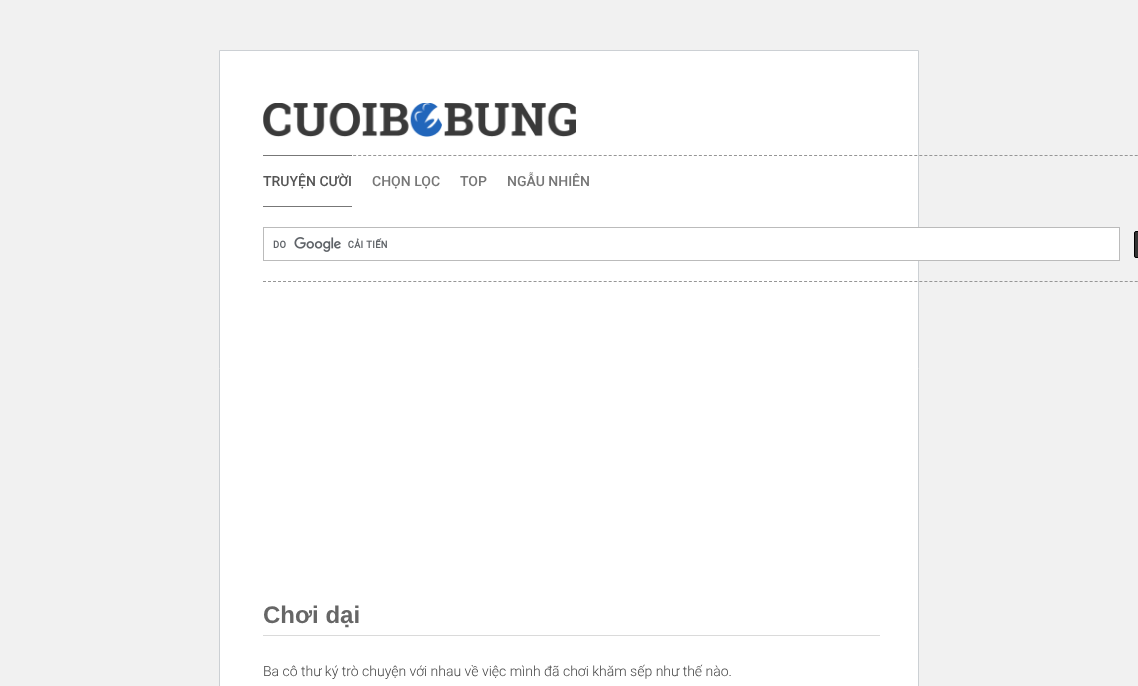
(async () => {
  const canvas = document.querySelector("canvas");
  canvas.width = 1138;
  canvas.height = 686;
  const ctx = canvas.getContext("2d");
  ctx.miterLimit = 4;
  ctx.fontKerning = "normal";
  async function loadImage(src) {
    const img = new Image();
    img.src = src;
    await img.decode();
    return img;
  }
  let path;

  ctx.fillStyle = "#f1f1f1";
  ctx.fillRect(0, 0, 1138, 686);
  ctx.fillStyle = "#ffffff";
  ctx.beginPath();
  ctx.rect(219.5, 50.5, 699, 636);
  ctx.fill();
  ctx.strokeStyle = "#ccd0d4";
  ctx.stroke();
  path = new Path2D("M263 155.5H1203");
  ctx.strokeStyle = "#969696";
  ctx.setLineDash([3, 2.01]);
  ctx.stroke(path);
  ctx.drawImage(await loadImage("img/1.png"), 263, 103, 313, 34);
  path = new Path2D("M263 281.5H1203");
  ctx.stroke(path);
  for (const [x, y, w, h, color] of [
    [263, 155, 89, 1, "#777777"],
    [263, 206, 89, 1, "#777777"],
    [918, 228, 201, 32, "#ffffff"],
  ]) {
    ctx.fillStyle = color;
    ctx.fillRect(x, y, w, h);
  }
  ctx.strokeStyle = "#bbbbbb";
  ctx.setLineDash([]);
  ctx.strokeRect(263.5, 227.5, 856, 33);
  ctx.drawImage(await loadImage("img/2.png"), 273, 237, 114, 15);
  ctx.fillStyle = "#333333";
  ctx.beginPath();
  ctx.roundRect(1134.5, 231.5, 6, 26, 1.5);
  ctx.fill();
  ctx.strokeStyle = "#000000";
  ctx.stroke();
  ctx.fillStyle = "#dadada";
  ctx.fillRect(263, 635, 617, 1);
  ctx.font = "500 14px Roboto";
  ctx.fillStyle = "#555555";
  ctx.fillText("TRUYỆN CƯỜI", 263, 186);
  ctx.fillStyle = "#777777";
  for (const [text, x, y] of [
    ["CHỌN LỌC", 372, 186],
    ["TOP", 460, 186],
    ["NGẪU NHIÊN", 507, 186],
  ]) {
    ctx.fillText(text, x, y);
  }
  ctx.font = "bold 24px Liberation Sans";
  ctx.fillStyle = "#666666";
  ctx.fillText("Chơi dại", 263, 623);
  ctx.font = "300 14px Roboto";
  ctx.fillStyle = "#444444";
  ctx.fillText("Ba cô thư ký trò chuyện với nhau về việc mình đã chơi khăm sếp như thế nào.", 263, 676);
})();
